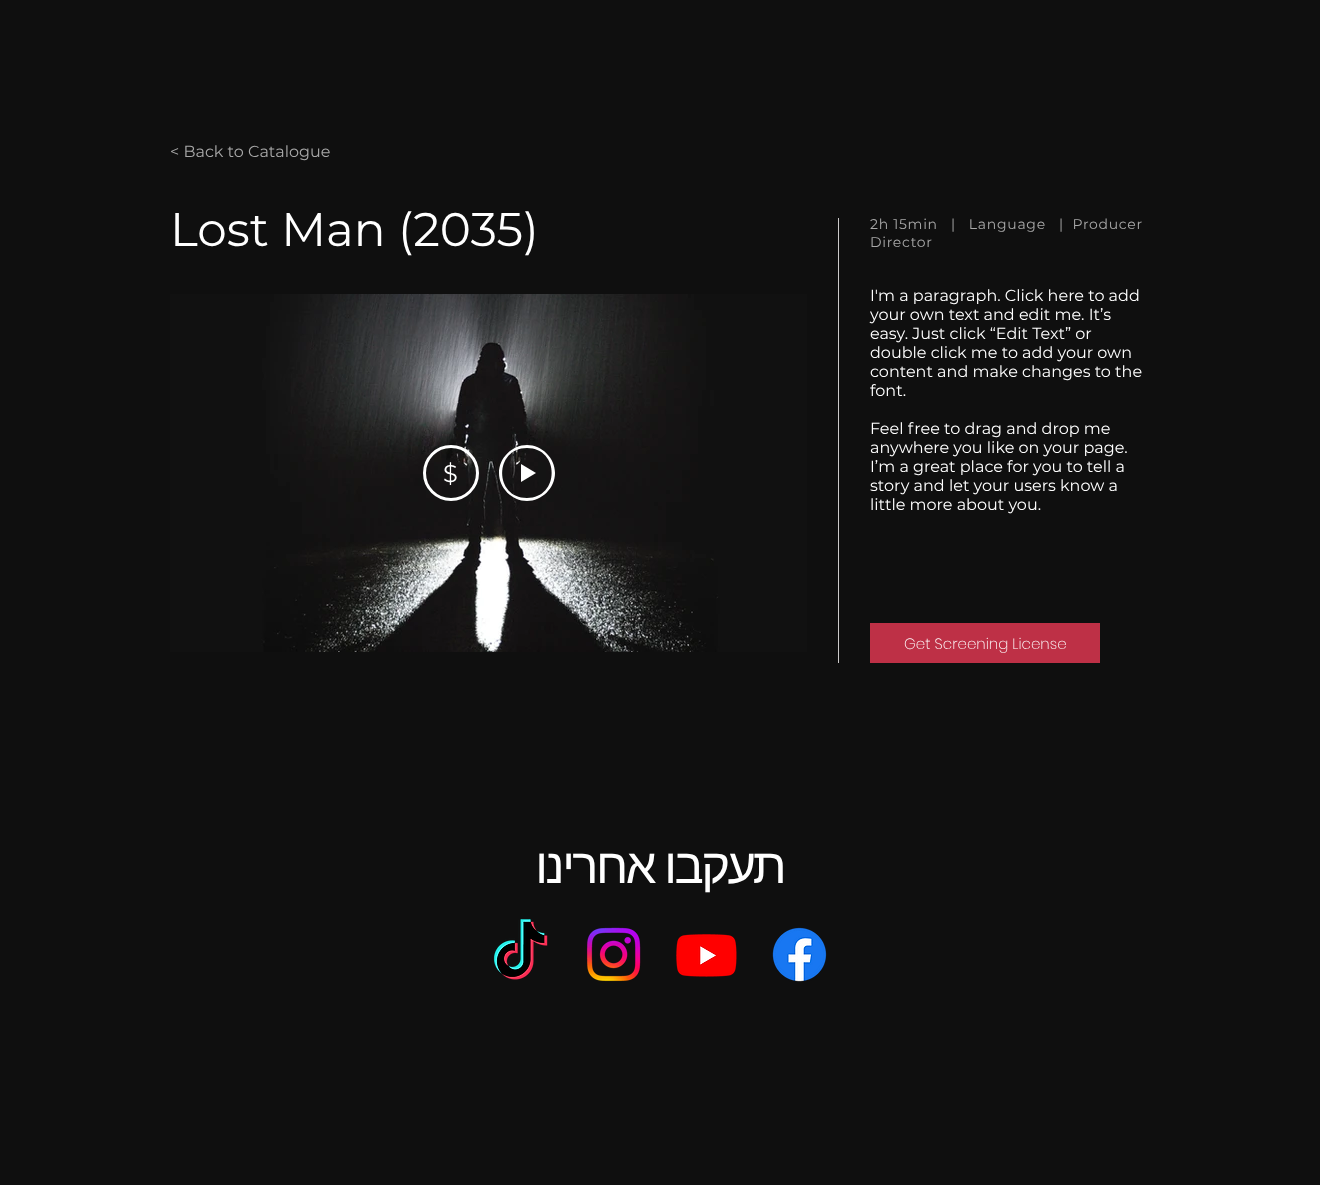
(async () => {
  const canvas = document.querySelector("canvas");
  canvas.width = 1320;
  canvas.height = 1185;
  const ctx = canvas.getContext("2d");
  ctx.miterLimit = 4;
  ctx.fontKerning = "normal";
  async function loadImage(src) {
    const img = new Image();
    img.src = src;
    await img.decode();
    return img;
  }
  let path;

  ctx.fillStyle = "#0f0f0f";
  ctx.fillRect(0, 0, 1320, 1185);
  ctx.fillStyle = "#cccaca";
  ctx.fillRect(838, 218, 1, 445);
  ctx.drawImage(await loadImage("img/1.png"), 170, 294, 637, 358);
  ctx.beginPath();
  ctx.arc(451, 473, 26.5, 0, Math.PI * 2);
  ctx.strokeStyle = "#ffffff";
  ctx.lineWidth = 3;
  ctx.stroke();
  ctx.fillStyle = "#ffffff";
  path = new Path2D("M527 498C560 498 560 448 527 448C494 448 494 498 527 498ZM527 501C512 501 499 488 499 473C499 458 512 445 527 445C542 445 555 458 555 473C555 488 542 501 527 501Z");
  ctx.fill(path, "evenodd");
  path = new Path2D("M536 473L521 482V464Z");
  ctx.fill(path, "evenodd");
  ctx.fillStyle = "#be3046";
  ctx.fillRect(870, 623, 230, 40);
  ctx.drawImage(await loadImage("img/2.png"), 493, 919, 55, 61);
  ctx.drawImage(await loadImage("img/3.png"), 586, 927, 55, 55);
  ctx.drawImage(await loadImage("img/4.png"), 676, 934, 61, 43);
  ctx.drawImage(await loadImage("img/5.png"), 772, 927, 55, 55);
  ctx.font = "16px Montserrat";
  ctx.fillStyle = "#a8a8a8";
  ctx.fillText("< Back to Catalogue", 170, 157);
  ctx.font = "47px Montserrat";
  ctx.fillStyle = "#ffffff";
  ctx.fillText("Lost Man (2035)", 170, 246);
  ctx.letterSpacing = "0.7px";
  ctx.font = "14px Montserrat";
  ctx.fillStyle = "#a8a8a8";
  ctx.fillText("2h 15min   |   Language   |  Producer", 870, 229);
  ctx.fillText("Director", 870, 247);
  ctx.letterSpacing = "0px";
  ctx.font = "24px Montserrat";
  ctx.fillStyle = "#ffffff";
  ctx.fillText("$", 443, 482);
  ctx.font = "16px Montserrat";
  for (const [text, x, y] of [
    ["I'm a paragraph. Click here to add", 870, 301],
    ["your own text and edit me. It’s", 870, 320],
    ["easy. Just click “Edit Text” or", 870, 339],
    ["double click me to add your own", 870, 358],
    ["content and make changes to the", 870, 377],
    ["font.", 870, 396],
    ["Feel free to drag and drop me", 870, 434],
    ["anywhere you like on your page.", 870, 453],
    ["I’m a great place for you to tell a", 870, 472],
    ["story and let your users know a", 870, 491],
    ["little more about you.", 870, 510],
  ]) {
    ctx.fillText(text, x, y);
  }
  ctx.font = "200 15px Poppins";
  ctx.fillText("Get Screening License", 904, 649);
  ctx.letterSpacing = "-2.5px";
  ctx.wordSpacing = "-1px";
  ctx.direction = "rtl";
  ctx.font = "49px Liberation Sans";
  ctx.fillText("תעקבו אחרינו", 784, 883);
})();
